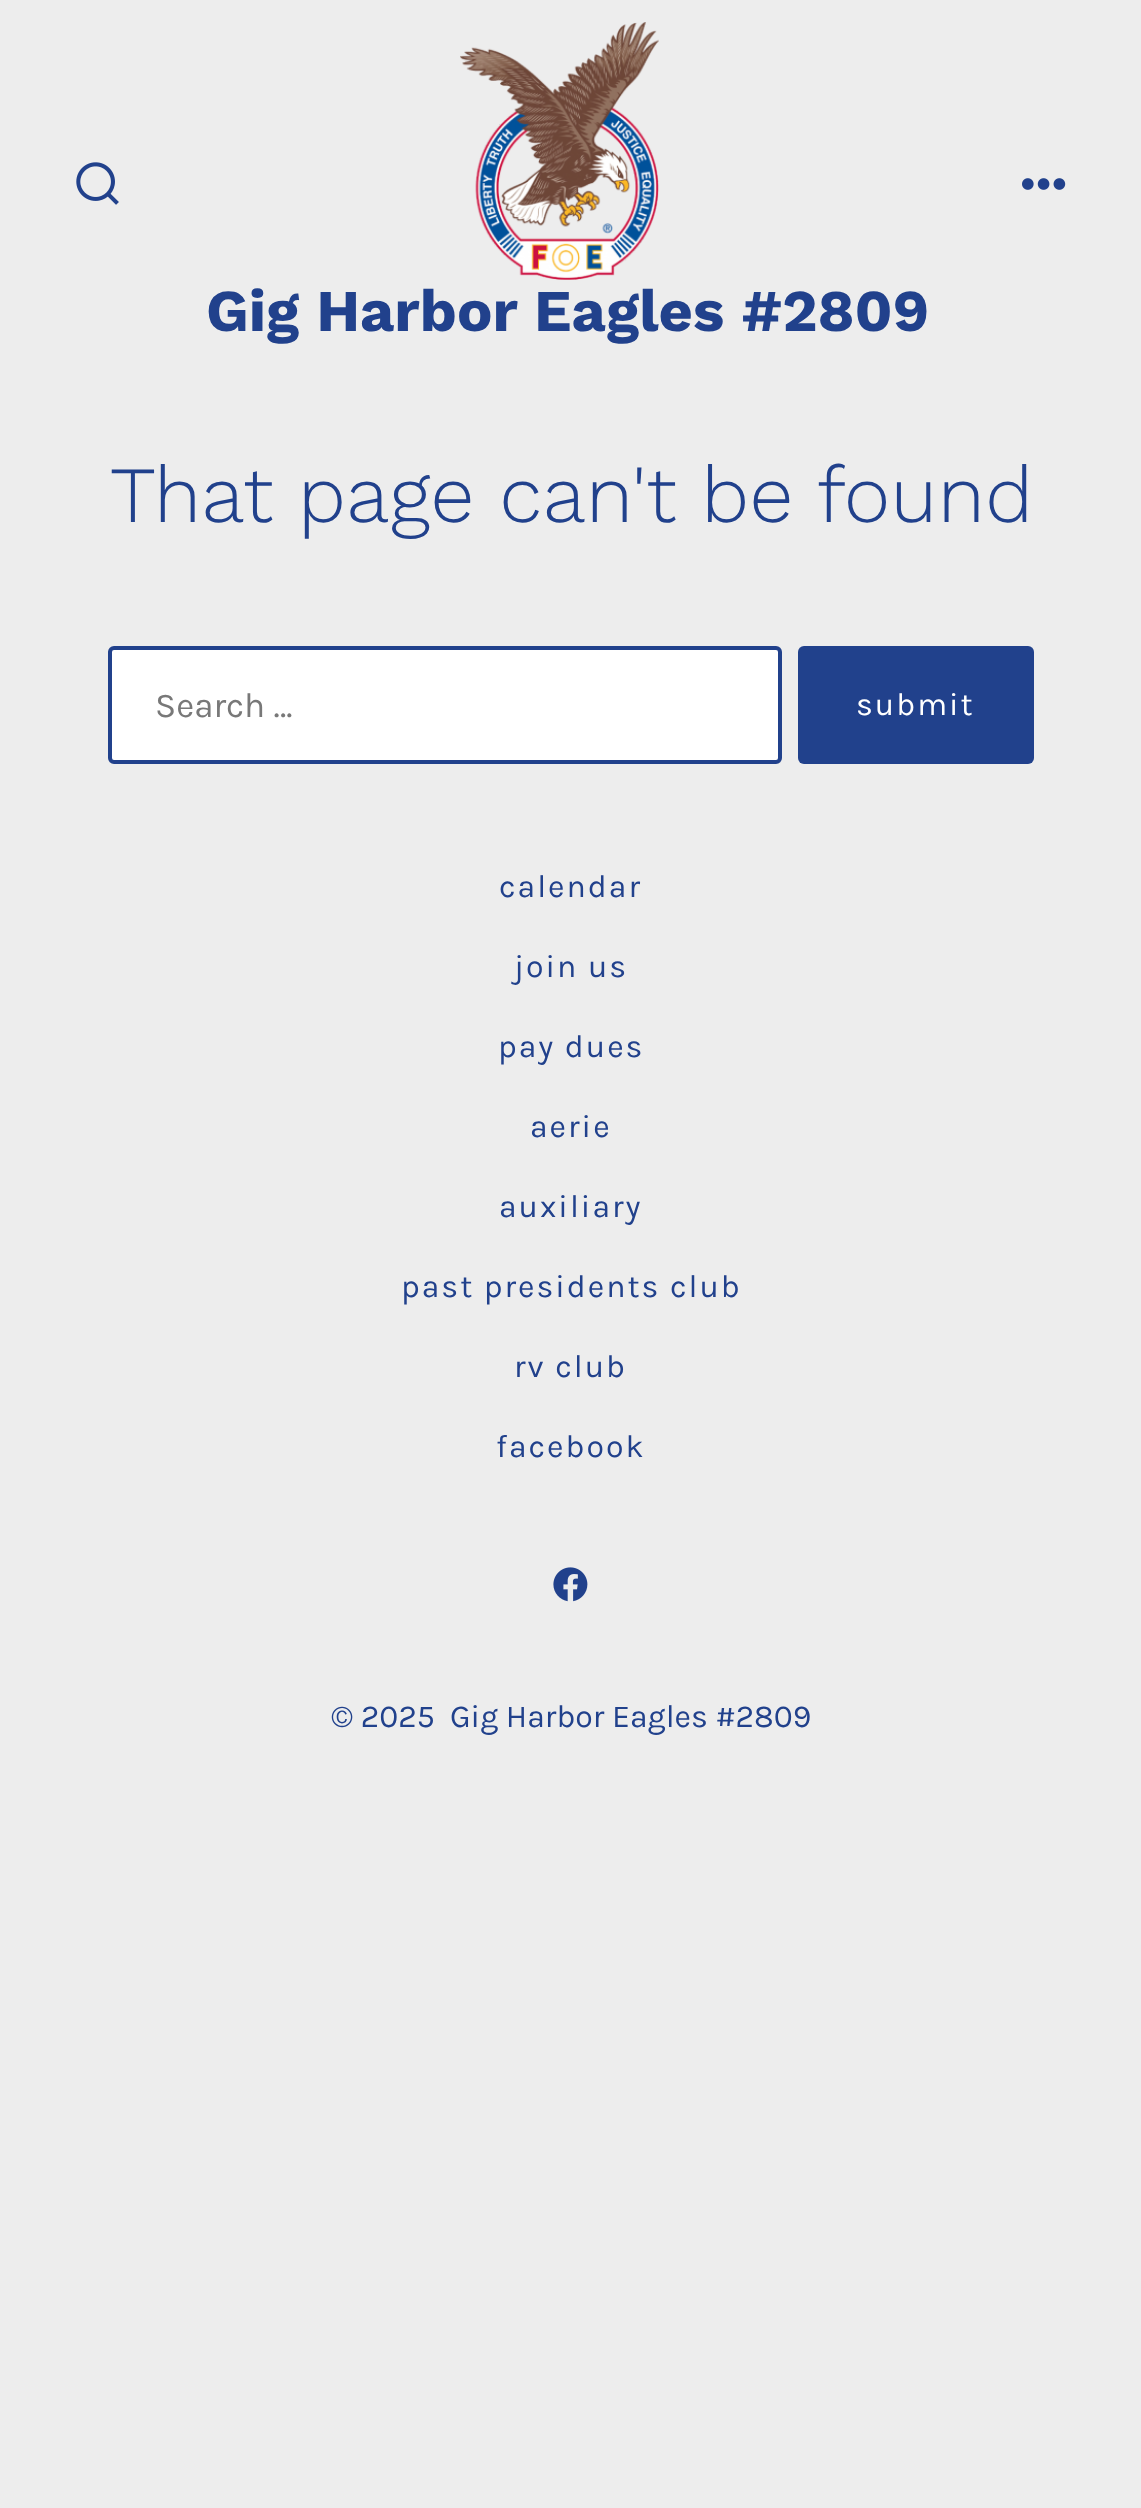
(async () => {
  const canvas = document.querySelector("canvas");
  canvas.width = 1141;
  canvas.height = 2508;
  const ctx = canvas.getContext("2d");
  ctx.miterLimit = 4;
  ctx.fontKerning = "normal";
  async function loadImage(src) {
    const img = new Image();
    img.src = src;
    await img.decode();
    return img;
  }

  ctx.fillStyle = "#ededed";
  ctx.fillRect(0, 0, 1141, 2508);
  ctx.drawImage(await loadImage("img/1.png"), 76, 162, 43, 43);
  ctx.drawImage(await loadImage("img/2.png"), 1022, 178, 44, 12);
  ctx.drawImage(await loadImage("img/3.png"), 460, 22, 199, 258);
  ctx.fillStyle = "#ffffff";
  ctx.beginPath();
  ctx.roundRect(110, 648, 670, 114, 4);
  ctx.fill();
  ctx.strokeStyle = "#21418c";
  ctx.lineWidth = 4;
  ctx.stroke();
  ctx.fillStyle = "#21418c";
  ctx.beginPath();
  ctx.roundRect(798, 646, 236, 118, 6);
  ctx.fill();
  ctx.drawImage(await loadImage("img/4.png"), 553, 1567, 35, 35);
  ctx.font = "bold 59.25px Work Sans";
  ctx.fillText("Gig Harbor Eagles #2809", 206, 331);
  ctx.font = "300 79.5px Work Sans";
  ctx.fillText("That page can't be found", 110, 522);
  ctx.font = "35px Karla";
  ctx.fillStyle = "#787878";
  ctx.fillText("Search …", 155, 717);
  ctx.letterSpacing = "2px";
  ctx.font = "32px Karla";
  ctx.fillStyle = "#ffffff";
  ctx.fillText("submit", 856, 715);
  ctx.fillStyle = "#21418c";
  for (const [text, x, y] of [
    ["calendar", 499, 897],
    ["join us", 514, 977],
    ["pay dues", 498, 1057],
    ["aerie", 530, 1137],
    ["auxiliary", 499, 1217],
    ["past presidents club", 401, 1297],
    ["rv club", 514, 1377],
    ["facebook", 496, 1457],
  ]) {
    ctx.fillText(text, x, y);
  }
  ctx.letterSpacing = "0px";
  ctx.fillText("© 2025", 331, 1727);
  ctx.fillText("Gig Harbor Eagles #2809", 450, 1727);
})();
